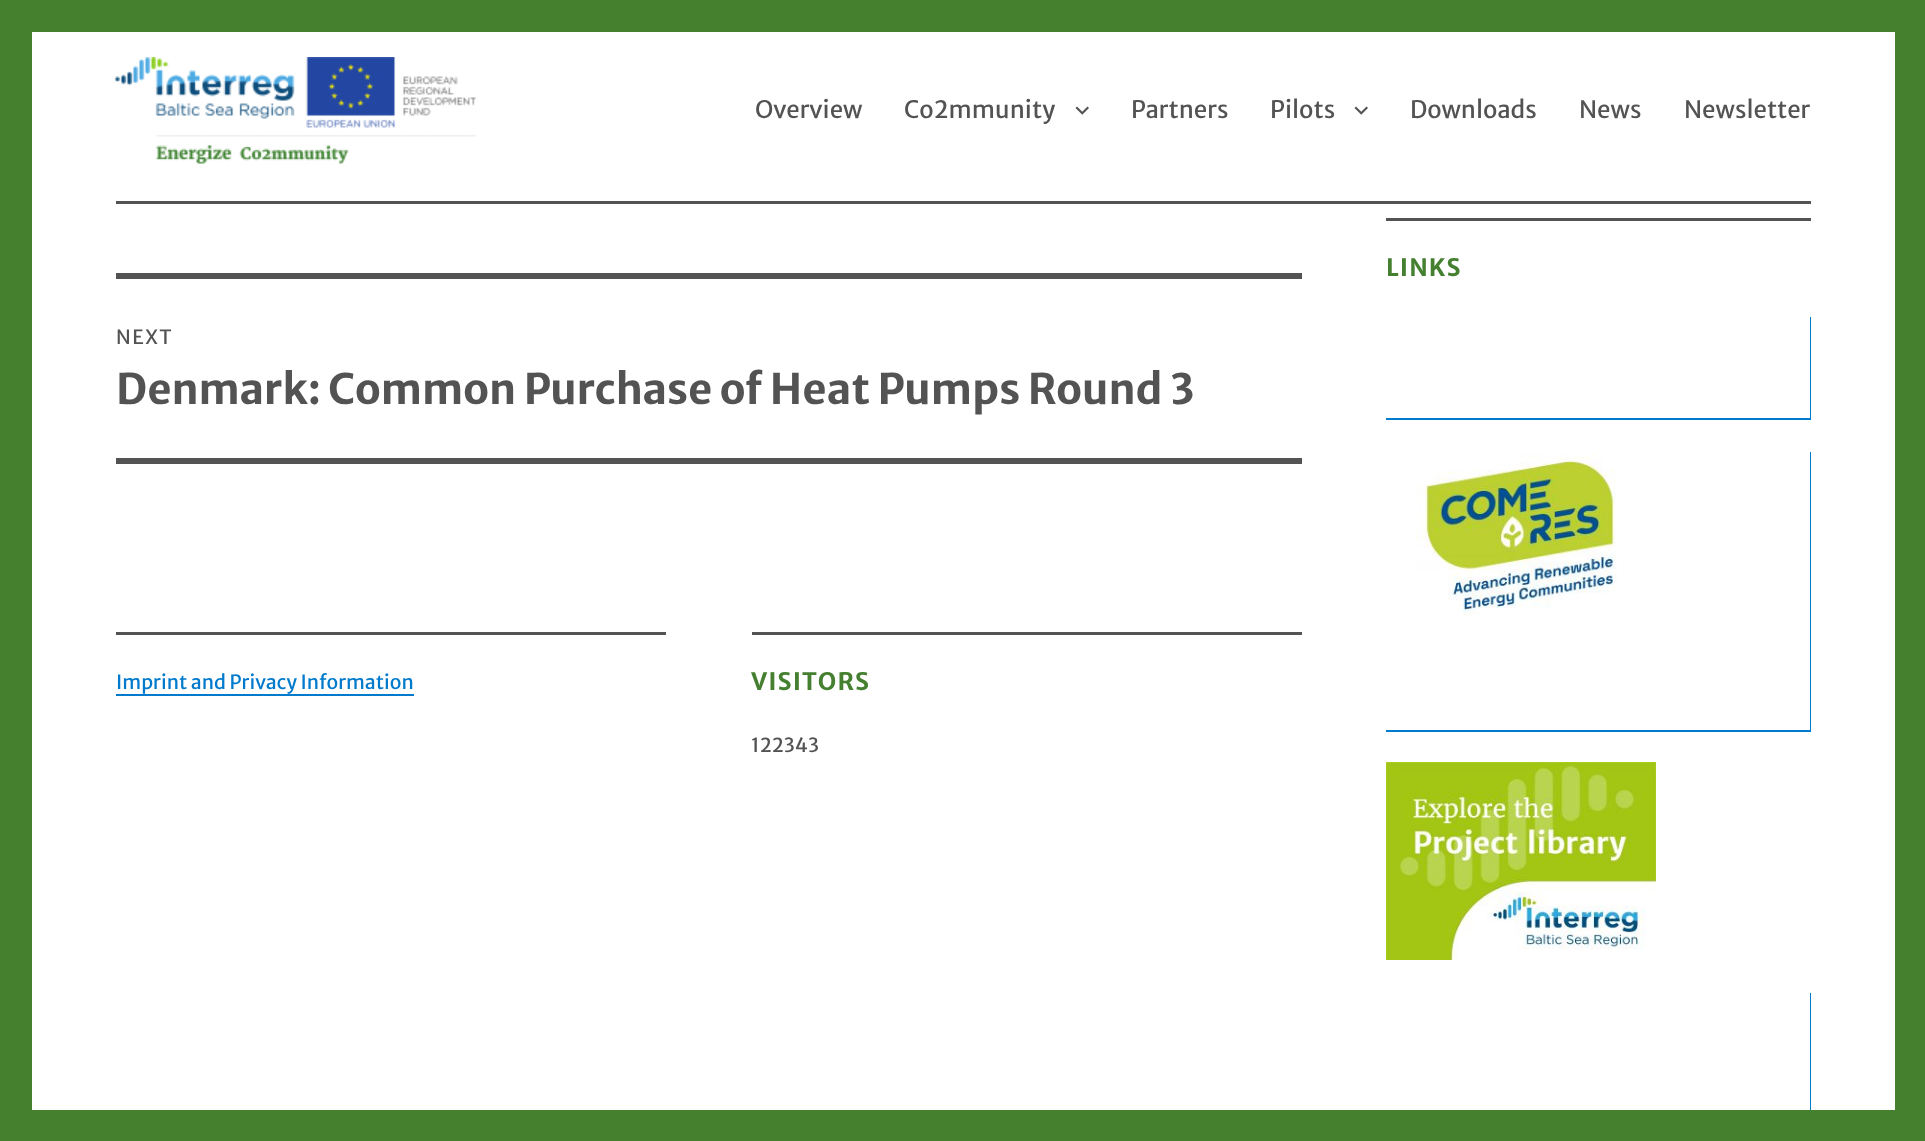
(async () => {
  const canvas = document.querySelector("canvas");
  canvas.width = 1925;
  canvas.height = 1141;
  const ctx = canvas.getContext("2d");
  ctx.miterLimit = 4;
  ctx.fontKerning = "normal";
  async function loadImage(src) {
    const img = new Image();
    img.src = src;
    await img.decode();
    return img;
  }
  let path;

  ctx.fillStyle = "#45802f";
  ctx.fillRect(0, 0, 1925, 1141);
  ctx.fillStyle = "#ffffff";
  ctx.fillRect(32, 32, 1863, 1078);
  ctx.fillStyle = "#535353";
  ctx.fillRect(116, 201, 1695, 3);
  ctx.drawImage(await loadImage("img/1.png"), 115, 57, 361, 107);
  ctx.drawImage(await loadImage("img/2.png"), 1075, 106, 14, 9);
  ctx.drawImage(await loadImage("img/2.png"), 1354, 106, 14, 9);
  ctx.fillRect(1386, 218, 425, 3);
  ctx.fillStyle = "#007acc";
  path = new Path2D("M1386 418V420H1811V317H1810V418Z");
  ctx.fill(path);
  ctx.drawImage(await loadImage("img/3.png"), 1416, 454, 201, 162);
  path = new Path2D("M1386 730V732H1811V452H1810V730Z");
  ctx.fill(path);
  ctx.drawImage(await loadImage("img/4.png"), 1386, 762, 270, 198);
  path = new Path2D("M1386 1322V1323H1811V993H1810V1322Z");
  ctx.fill(path);
  for (const [x, y, w, h, color] of [
    [116, 458, 1186, 6, "#535353"],
    [116, 273, 1186, 6, "#535353"],
    [116, 632, 550, 3, "#535353"],
    [116, 694, 298, 2, "#007acc"],
    [752, 632, 550, 3, "#535353"],
    [1810, 1110, 1, 31, "#45802f"],
  ]) {
    ctx.fillStyle = color;
    ctx.fillRect(x, y, w, h);
  }
  ctx.font = "24px Merriweather Sans";
  ctx.fillStyle = "#535353";
  for (const [text, x, y] of [
    ["Overview", 755, 118],
    ["Co2mmunity", 904, 118],
    ["Partners", 1131, 118],
    ["Pilots", 1270, 118],
    ["Downloads", 1410, 118],
    ["News", 1579, 118],
    ["Newsletter", 1684, 118],
  ]) {
    ctx.fillText(text, x, y);
  }
  ctx.letterSpacing = "1px";
  ctx.font = "bold 24px Merriweather Sans";
  ctx.fillStyle = "#457f30";
  ctx.fillText("LINKS", 1386, 276);
  ctx.letterSpacing = "1.5px";
  ctx.font = "19.5px Merriweather Sans";
  ctx.fillStyle = "#535353";
  ctx.fillText("NEXT", 116, 344);
  ctx.letterSpacing = "0px";
  ctx.font = "bold 42px Merriweather Sans";
  ctx.fillText("Denmark: Common Purchase of Heat Pumps Round 3", 116, 404);
  ctx.font = "19.5px Merriweather Sans";
  ctx.fillStyle = "#007acc";
  ctx.fillText("Imprint and Privacy Information", 116, 689);
  ctx.letterSpacing = "1px";
  ctx.font = "bold 24px Merriweather Sans";
  ctx.fillStyle = "#457f30";
  ctx.fillText("VISITORS", 751, 690);
  ctx.letterSpacing = "0px";
  ctx.font = "19.5px Merriweather Sans";
  ctx.fillStyle = "#535353";
  ctx.fillText("122343", 751, 752);
})();
